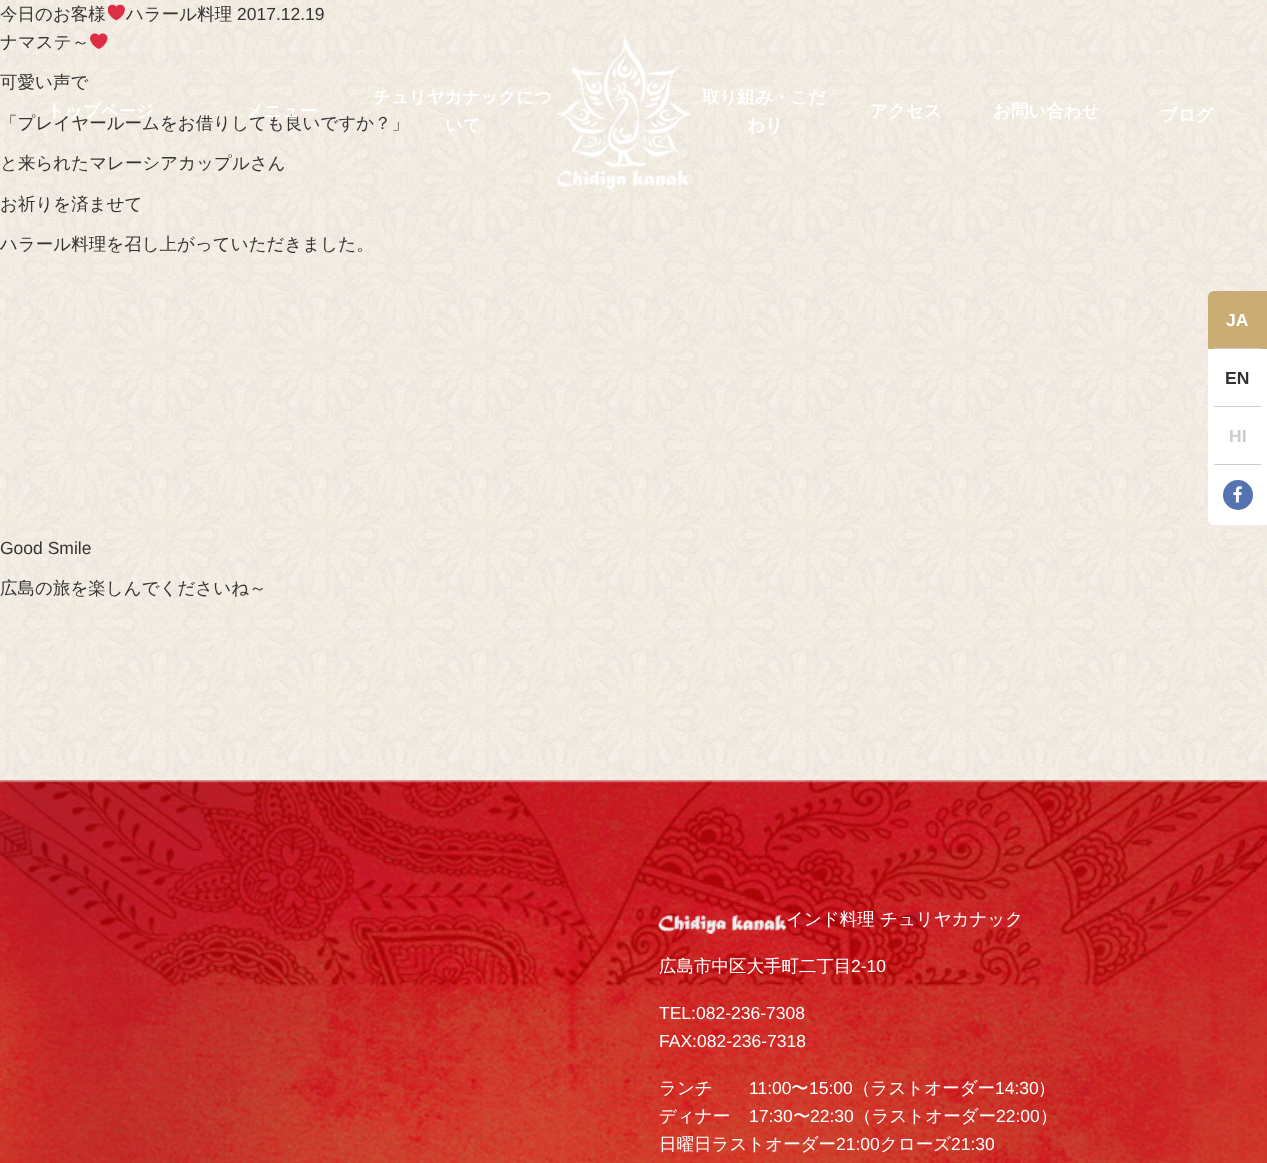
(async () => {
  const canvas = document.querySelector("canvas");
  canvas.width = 1267;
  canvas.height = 1163;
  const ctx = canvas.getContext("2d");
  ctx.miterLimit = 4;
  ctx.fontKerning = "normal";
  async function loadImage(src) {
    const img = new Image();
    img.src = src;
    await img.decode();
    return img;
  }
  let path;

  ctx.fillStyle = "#ffffff";
  ctx.fillRect(0, 0, 1267, 1163);
  ctx.drawImage(await loadImage("img/1.png"), 0, 0, 1267, 780);
  ctx.drawImage(await loadImage("img/2.png"), 108, 4, 17, 17);
  ctx.drawImage(await loadImage("img/3.png"), 90, 33, 18, 16);
  ctx.drawImage(await loadImage("img/4.png"), 555, 32, 138, 158);
  path = new Path2D("M1214 291H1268V525H1214C1210.5 525 1208 522.5 1208 519V297C1208 293.5 1210.5 291 1214 291Z");
  ctx.fill(path);
  ctx.fillStyle = "#c9ad74";
  path = new Path2D("M1214 291H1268V349H1208V297C1208 293.5 1210.5 291 1214 291Z");
  ctx.fill(path);
  for (const [x, y, w, h, color] of [
    [1214, 348, 47, 1, "#cccccc"],
    [1214, 406, 47, 1, "#cccccc"],
    [1214, 464, 47, 1, "#cccccc"],
  ]) {
    ctx.fillStyle = color;
    ctx.fillRect(x, y, w, h);
  }
  ctx.fillStyle = "#5573b0";
  ctx.beginPath();
  ctx.arc(1238, 495, 15, 0, Math.PI * 2);
  ctx.fill();
  ctx.drawImage(await loadImage("img/5.png"), 1233, 486, 9, 17);
  ctx.drawImage(await loadImage("img/6.png"), 0, 780, 1267, 383);
  ctx.drawImage(await loadImage("img/7.png"), 658, 915, 129, 19);
  ctx.font = "500 17.5px WenQuanYi Zen Hei";
  ctx.fillStyle = "#333333";
  ctx.fillText("今日のお客様", 0, 20);
  ctx.fillText("ハラール料理", 126, 20);
  ctx.font = "17.5px Liberation Sans";
  ctx.fillText("2017.12.19", 237, 20);
  ctx.font = "500 17.5px WenQuanYi Zen Hei";
  for (const [text, x, y] of [
    ["ナマステ～", 0, 48],
    ["可愛い声で", 0, 88],
    ["「プレイヤールームをお借りしても良いですか？」", 0, 129],
    ["と来られたマレーシアカップルさん", 0, 169],
    ["お祈りを済ませて", 0, 210],
    ["ハラール料理を召し上がっていただきました。", 0, 250],
  ]) {
    ctx.fillText(text, x, y);
  }
  ctx.font = "17.5px Liberation Sans";
  ctx.fillText("Good Smile", 0, 554);
  ctx.font = "500 17.5px WenQuanYi Zen Hei";
  ctx.fillText("広島の旅を楽しんでくださいね～", 0, 594);
  ctx.font = "bold 17.5px WenQuanYi Zen Hei";
  ctx.fillStyle = "#ffffff";
  for (const [text, x, y] of [
    ["トップページ", 47, 117],
    ["メニュー", 246, 117],
    ["チュリヤカナックにつ", 373, 103],
    ["いて", 445, 131],
    ["取り組み・こだ", 702, 103],
    ["わり", 747, 131],
    ["アクセス", 870, 117],
    ["お問い合わせ", 993, 117],
    ["ブログ", 1160, 121],
  ]) {
    ctx.fillText(text, x, y);
  }
  ctx.font = "bold 17.5px Liberation Sans";
  ctx.fillText("JA", 1226, 326);
  ctx.fillStyle = "#333333";
  ctx.fillText("EN", 1225, 384);
  ctx.fillStyle = "#cccccc";
  ctx.fillText("HI", 1229, 442);
  ctx.font = "500 17.5px WenQuanYi Zen Hei";
  ctx.fillStyle = "#ffffff";
  ctx.fillText("インド料理 チュリヤカナック", 786, 925);
  ctx.fillText("広島市中区大手町二丁目", 659, 972);
  ctx.font = "17.5px Liberation Sans";
  for (const [text, x, y] of [
    ["2-10", 851, 972],
    ["TEL:082-236-7308", 659, 1019],
    ["FAX:082-236-7318", 659, 1047],
  ]) {
    ctx.fillText(text, x, y);
  }
  ctx.font = "500 17.5px WenQuanYi Zen Hei";
  ctx.fillText("ランチ", 659, 1094);
  ctx.font = "17.5px Liberation Sans";
  ctx.fillText("11:00", 749, 1094);
  ctx.font = "500 17.5px WenQuanYi Zen Hei";
  ctx.fillText("〜", 791, 1094);
  ctx.font = "17.5px Liberation Sans";
  ctx.fillText("15:00", 809, 1094);
  ctx.font = "500 17.5px WenQuanYi Zen Hei";
  ctx.fillText("（ラストオーダー", 853, 1094);
  ctx.font = "17.5px Liberation Sans";
  ctx.fillText("14:30", 995, 1094);
  ctx.font = "500 17.5px WenQuanYi Zen Hei";
  ctx.fillText("）", 1038, 1094);
  ctx.fillText("ディナー", 659, 1122);
  ctx.font = "17.5px Liberation Sans";
  ctx.fillText("17:30", 749, 1122);
  ctx.font = "500 17.5px WenQuanYi Zen Hei";
  ctx.fillText("〜", 793, 1122);
  ctx.font = "17.5px Liberation Sans";
  ctx.fillText("22:30", 810, 1122);
  ctx.font = "500 17.5px WenQuanYi Zen Hei";
  ctx.fillText("（ラストオーダー", 854, 1122);
  ctx.font = "17.5px Liberation Sans";
  ctx.fillText("22:00", 996, 1122);
  ctx.font = "500 17.5px WenQuanYi Zen Hei";
  ctx.fillText("）", 1040, 1122);
  ctx.fillText("日曜日ラストオーダー", 659, 1150);
  ctx.font = "17.5px Liberation Sans";
  ctx.fillText("21:00", 836, 1150);
  ctx.font = "500 17.5px WenQuanYi Zen Hei";
  ctx.fillText("クローズ", 880, 1150);
  ctx.font = "17.5px Liberation Sans";
  ctx.fillText("21:30", 951, 1150);
})();
